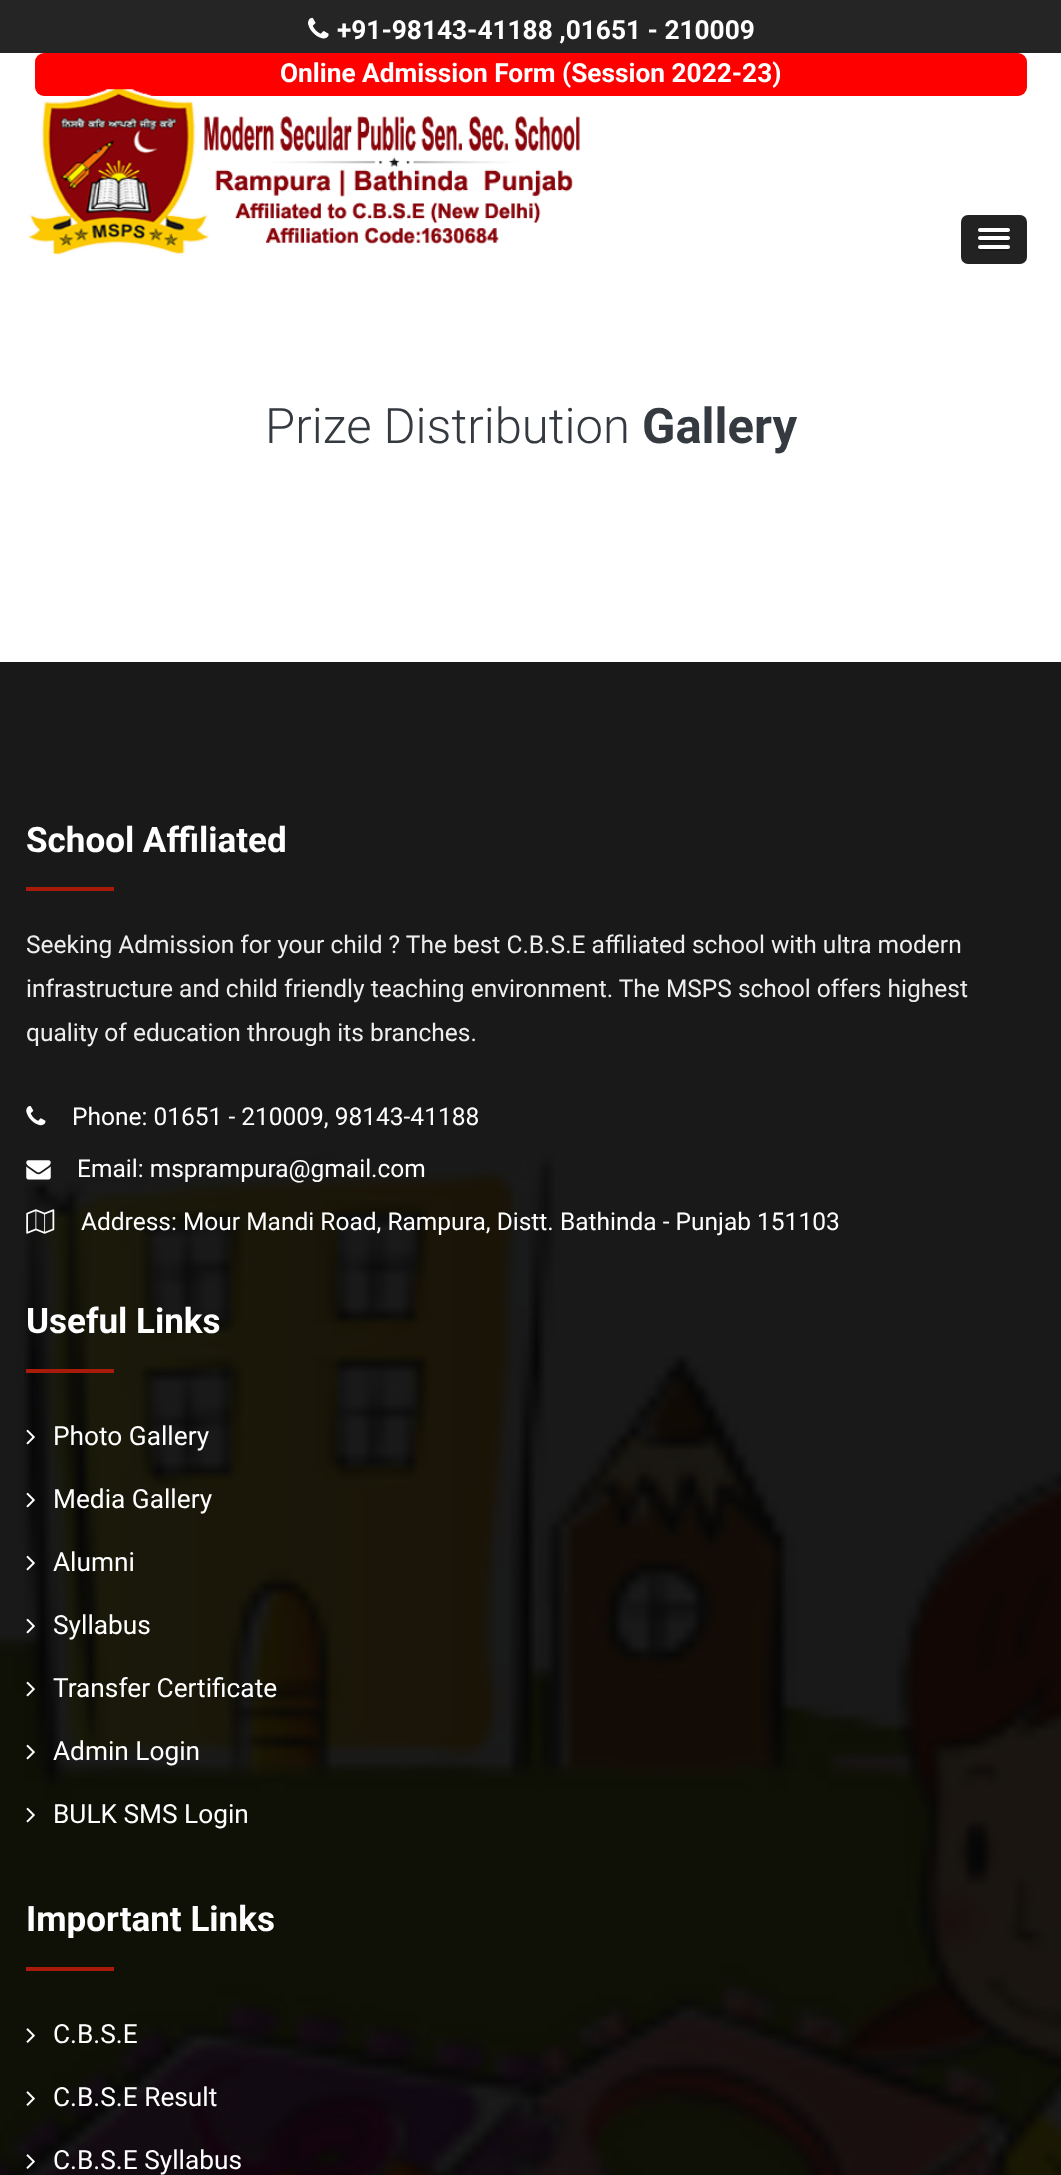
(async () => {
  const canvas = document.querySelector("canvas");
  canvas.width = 1061;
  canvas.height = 2175;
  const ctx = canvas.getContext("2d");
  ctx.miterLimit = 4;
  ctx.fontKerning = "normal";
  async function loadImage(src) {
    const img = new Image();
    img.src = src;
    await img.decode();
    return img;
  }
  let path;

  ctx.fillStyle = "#ffffff";
  ctx.fillRect(0, 0, 1061, 2175);
  ctx.fillStyle = "#191919";
  ctx.fillRect(0, 662, 1061, 1078);
  ctx.fillStyle = "#252525";
  ctx.fillRect(0, 0, 1061, 53);
  ctx.drawImage(await loadImage("img/1.png"), 308, 17, 21, 22);
  ctx.fillStyle = "#ff0000";
  ctx.beginPath();
  ctx.roundRect(35, 53, 992, 43, 9);
  ctx.fill();
  ctx.drawImage(await loadImage("img/2.png"), 28, 89, 552, 166);
  ctx.fillStyle = "#222222";
  ctx.beginPath();
  ctx.roundRect(961, 215, 66, 49, 7);
  ctx.fill();
  ctx.fillStyle = "#1a1a1a";
  path = new Path2D("M978.5 230L978 231.5C978.5 234 983.5 233 984.5 233H1003.5C1004.5 233 1009.5 234 1010 231.5L1009.5 230C1009.5 230.5 1009 231 1008 231H980C979 231 978.5 230.5 978.5 230Z");
  ctx.fill(path);
  ctx.fillStyle = "#ffffff";
  ctx.beginPath();
  ctx.roundRect(978, 228, 32, 4, 2);
  ctx.fill();
  ctx.fillStyle = "#1a1a1a";
  path = new Path2D("M978.5 239L978 240.5C978.5 243 983.5 242 984.5 242H1003.5C1004.5 242 1009.5 243 1010 240.5L1009.5 239C1009.5 239.5 1008.5 240 1008 240H980C979.5 240 978.5 239.5 978.5 239Z");
  ctx.fill(path);
  ctx.fillStyle = "#ffffff";
  ctx.beginPath();
  ctx.roundRect(978, 236, 32, 4, 2);
  ctx.fill();
  ctx.fillStyle = "#1a1a1a";
  path = new Path2D("M978.5 247.5C977.5 249 978 250.5 979.5 251H1008.5C1010 250.5 1010.5 249 1009.5 247.5L1008 248.5H980Z");
  ctx.fill(path);
  ctx.fillStyle = "#ffffff";
  ctx.beginPath();
  ctx.roundRect(978, 245, 32, 4, 2);
  ctx.fill();
  ctx.drawImage(await loadImage("img/3.png"), 0, 1153, 1061, 1022);
  ctx.fillStyle = "#a81a0a";
  ctx.fillRect(26, 887, 88, 4);
  ctx.drawImage(await loadImage("img/4.png"), 26, 1106, 20, 20);
  ctx.drawImage(await loadImage("img/5.png"), 26, 1160, 25, 20);
  ctx.drawImage(await loadImage("img/6.png"), 26, 1209, 29, 25);
  ctx.fillRect(26, 1369, 88, 4);
  ctx.drawImage(await loadImage("img/7.png"), 26, 1429, 9, 16);
  ctx.drawImage(await loadImage("img/8.png"), 26, 1492, 9, 16);
  ctx.drawImage(await loadImage("img/9.png"), 26, 1555, 9, 16);
  ctx.drawImage(await loadImage("img/10.png"), 26, 1618, 9, 16);
  ctx.drawImage(await loadImage("img/11.png"), 26, 1681, 9, 16);
  ctx.drawImage(await loadImage("img/12.png"), 26, 1744, 9, 16);
  ctx.drawImage(await loadImage("img/13.png"), 26, 1807, 9, 16);
  ctx.fillRect(26, 1967, 88, 4);
  ctx.drawImage(await loadImage("img/14.png"), 26, 2028, 9, 15);
  ctx.drawImage(await loadImage("img/15.png"), 26, 2091, 9, 15);
  ctx.drawImage(await loadImage("img/16.png"), 26, 2154, 9, 15);
  ctx.font = "bold 26.25px Roboto";
  ctx.fillStyle = "#ffffff";
  ctx.fillText("+91-98143-41188 ,01651 - 210009", 337, 39);
  ctx.fillText("Online Admission Form (Session 2022-23)", 280, 82);
  ctx.font = "300 49px Roboto";
  ctx.fillStyle = "#343a40";
  ctx.fillText("Prize Distribution", 265, 443);
  ctx.font = "bold 49px Roboto";
  ctx.fillText("Gallery", 642, 443);
  ctx.font = "bold 35px Roboto";
  ctx.fillStyle = "#ffffff";
  ctx.fillText("School Affiliated", 26, 852);
  ctx.font = "24.5px Roboto";
  ctx.fillStyle = "#eeeeee";
  for (const [text, x, y] of [
    ["Seeking Admission for your child ? The best C.B.S.E affiliated school with ultra modern", 26, 953],
    ["infrastructure and child friendly teaching environment. The MSPS school offers highest", 26, 997],
    ["quality of education through its branches.", 26, 1041],
  ]) {
    ctx.fillText(text, x, y);
  }
  ctx.fillStyle = "#ffffff";
  for (const [text, x, y] of [
    ["Phone: 01651 - 210009, 98143-41188", 72, 1125],
    ["Email: msprampura@gmail.com", 77, 1177],
    ["Address: Mour Mandi Road, Rampura, Distt. Bathinda - Punjab 151103", 81, 1230],
  ]) {
    ctx.fillText(text, x, y);
  }
  ctx.font = "bold 35px Roboto";
  ctx.fillText("Useful Links", 26, 1333);
  ctx.font = "26.25px Roboto";
  for (const [text, x, y] of [
    ["Photo Gallery", 53, 1445],
    ["Media Gallery", 53, 1508],
    ["Alumni", 53, 1571],
    ["Syllabus", 53, 1634],
    ["Transfer Certificate", 53, 1697],
    ["Admin Login", 53, 1760],
    ["BULK SMS Login", 53, 1823],
  ]) {
    ctx.fillText(text, x, y);
  }
  ctx.font = "bold 35px Roboto";
  ctx.fillText("Important Links", 26, 1931);
  ctx.font = "26.25px Roboto";
  for (const [text, x, y] of [
    ["C.B.S.E", 53, 2043],
    ["C.B.S.E Result", 53, 2106],
    ["C.B.S.E Syllabus", 53, 2169],
  ]) {
    ctx.fillText(text, x, y);
  }
})();
